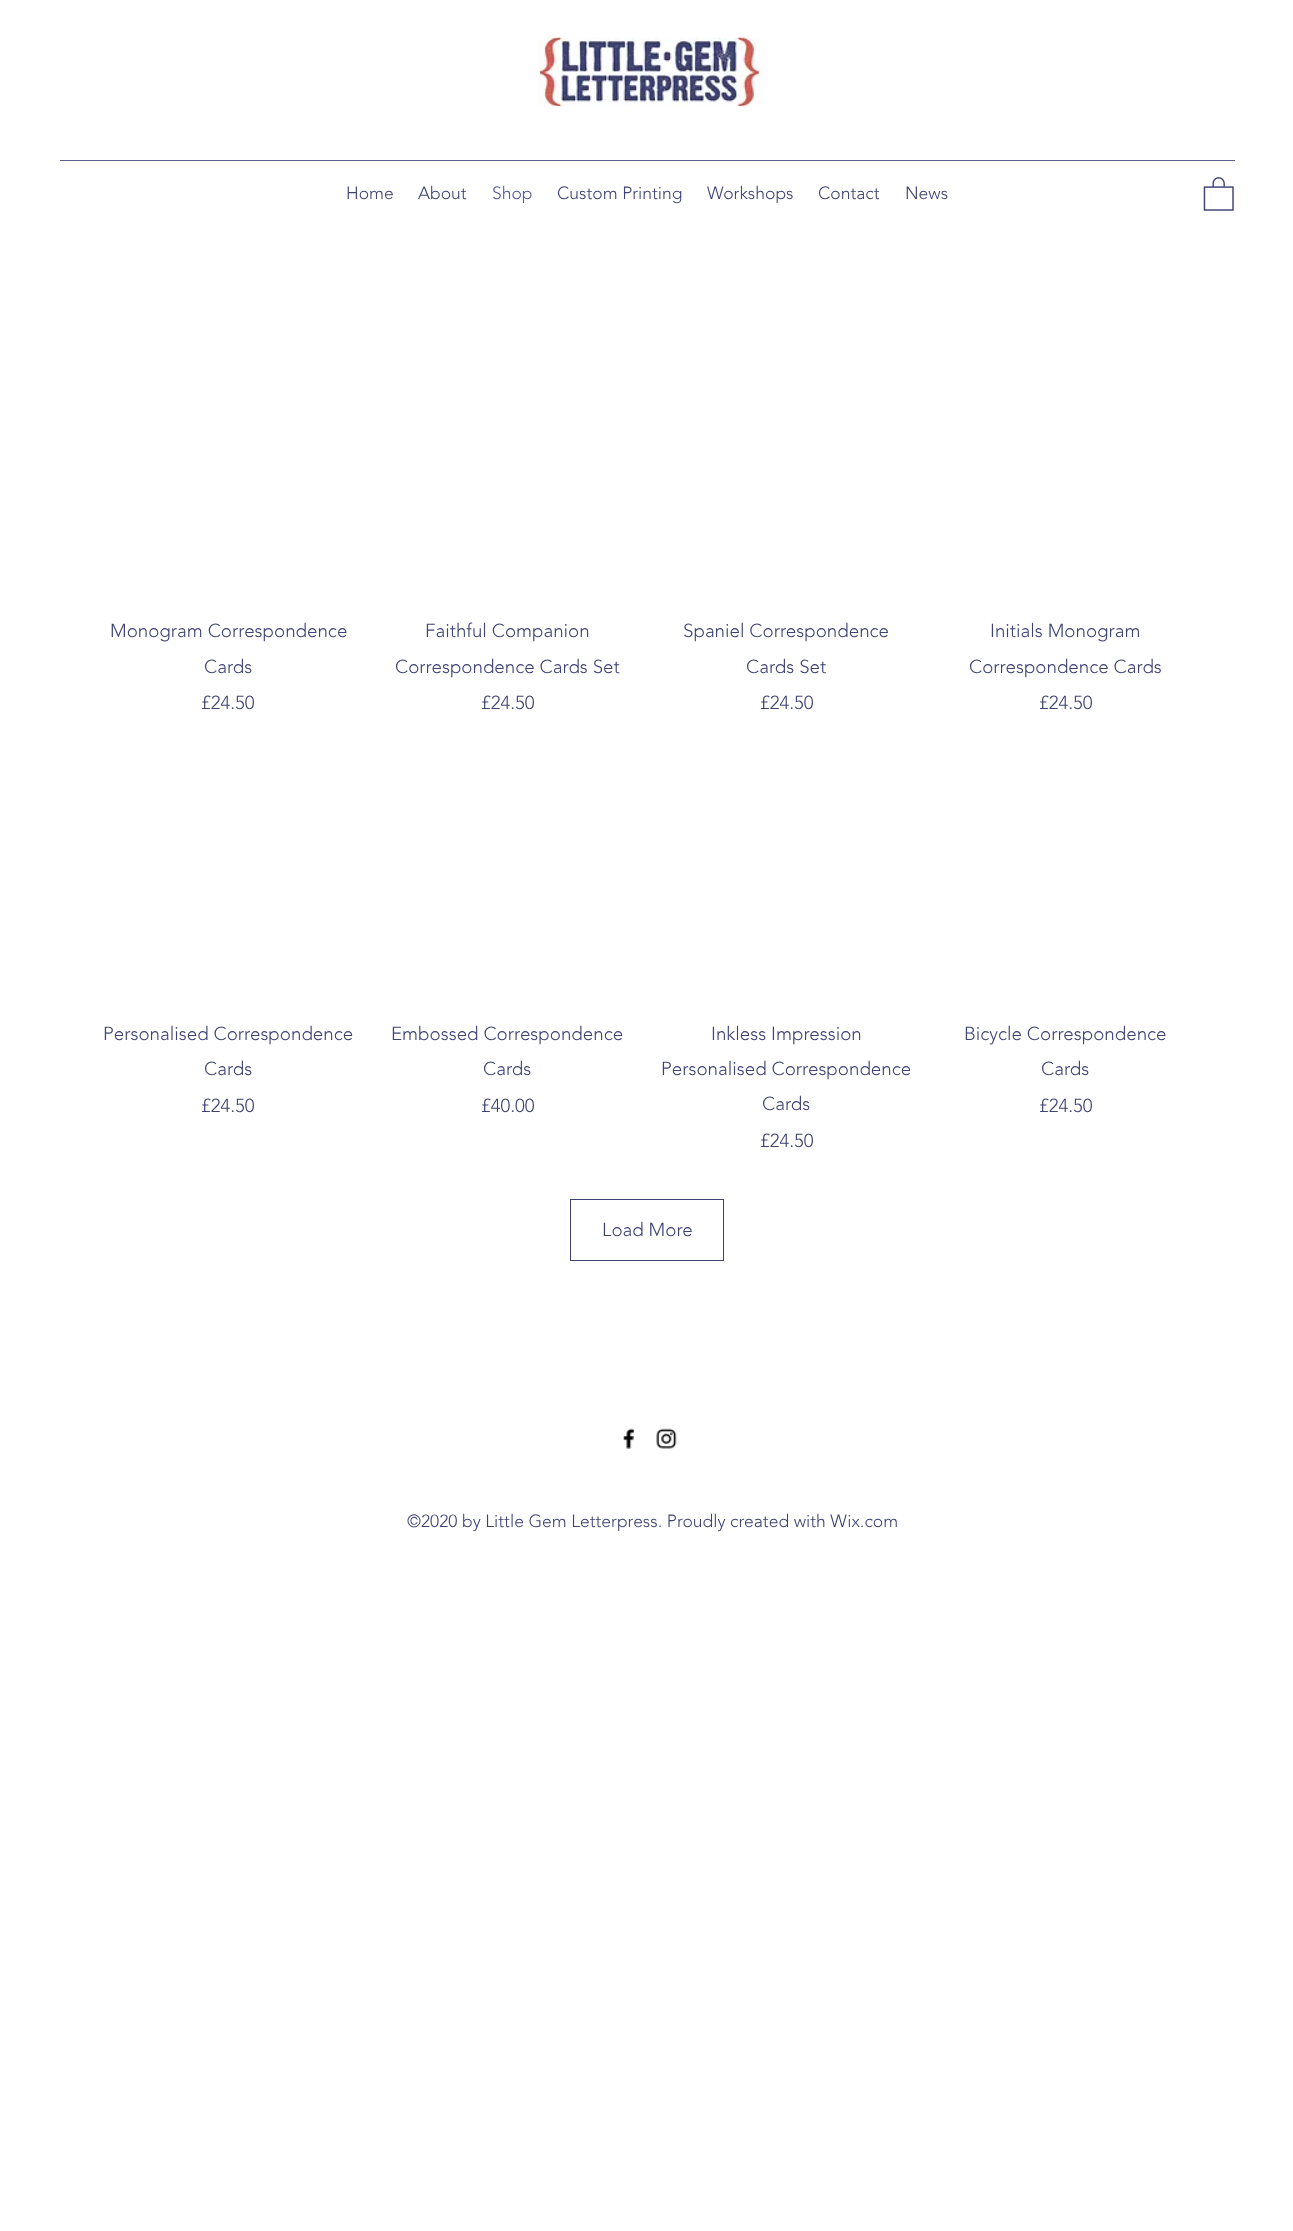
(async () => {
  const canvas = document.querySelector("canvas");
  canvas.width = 1293;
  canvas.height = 2231;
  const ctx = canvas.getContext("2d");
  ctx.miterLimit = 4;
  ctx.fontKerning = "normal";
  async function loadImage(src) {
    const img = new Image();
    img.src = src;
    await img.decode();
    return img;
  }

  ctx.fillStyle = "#ffffff";
  ctx.fillRect(0, 0, 1293, 2231);
  ctx.drawImage(await loadImage("img/1.png"), 538, 37, 224, 70);
  ctx.fillStyle = "#5b5f88";
  ctx.fillRect(60, 160, 1175, 1);
  ctx.drawImage(await loadImage("img/2.png"), 1203, 177, 31, 34);
  ctx.strokeStyle = "#3e4373";
  ctx.strokeRect(570.5, 1199.5, 153, 61);
  ctx.drawImage(await loadImage("img/3.png"), 623, 1428, 12, 21);
  ctx.drawImage(await loadImage("img/4.png"), 656, 1428, 21, 21);
  ctx.font = "300 17.5px 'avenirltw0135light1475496'";
  ctx.fillStyle = "#3e4373";
  ctx.fillText("Home", 346, 199);
  ctx.fillText("About", 418, 199);
  ctx.fillStyle = "#505694";
  ctx.fillText("Shop", 492, 199);
  ctx.fillStyle = "#3e4373";
  for (const [text, x, y] of [
    ["Custom Printing", 557, 199],
    ["Workshops", 707, 199],
    ["Contact", 818, 199],
    ["News", 905, 199],
  ]) {
    ctx.fillText(text, x, y);
  }
  ctx.font = "300 18.75px 'avenirltw0135light1475496'";
  for (const [text, x, y] of [
    ["Monogram Correspondence", 110, 637],
    ["Cards", 204, 673],
    ["£24.50", 201, 709],
    ["Faithful Companion", 425, 637],
    ["Correspondence Cards Set", 395, 673],
    ["£24.50", 481, 709],
    ["Spaniel Correspondence", 683, 637],
    ["Cards Set", 746, 673],
    ["£24.50", 760, 709],
    ["Initials Monogram", 990, 637],
    ["Correspondence Cards", 969, 673],
    ["£24.50", 1039, 709],
    ["Personalised Correspondence", 103, 1040],
    ["Cards", 204, 1075],
    ["£24.50", 201, 1112],
    ["Embossed Correspondence", 391, 1040],
    ["Cards", 483, 1075],
    ["£40.00", 481, 1112],
    ["Inkless Impression", 711, 1040],
    ["Personalised Correspondence", 661, 1075],
    ["Cards", 762, 1110],
    ["£24.50", 760, 1147],
    ["Bicycle Correspondence", 964, 1040],
    ["Cards", 1041, 1075],
    ["£24.50", 1039, 1112],
    ["Load More", 602, 1236],
  ]) {
    ctx.fillText(text, x, y);
  }
  ctx.font = "300 17.5px 'avenirltw0135light1475496'";
  ctx.fillText("©2020 by Little Gem Letterpress. Proudly created with Wix.com", 407, 1527);
})();
